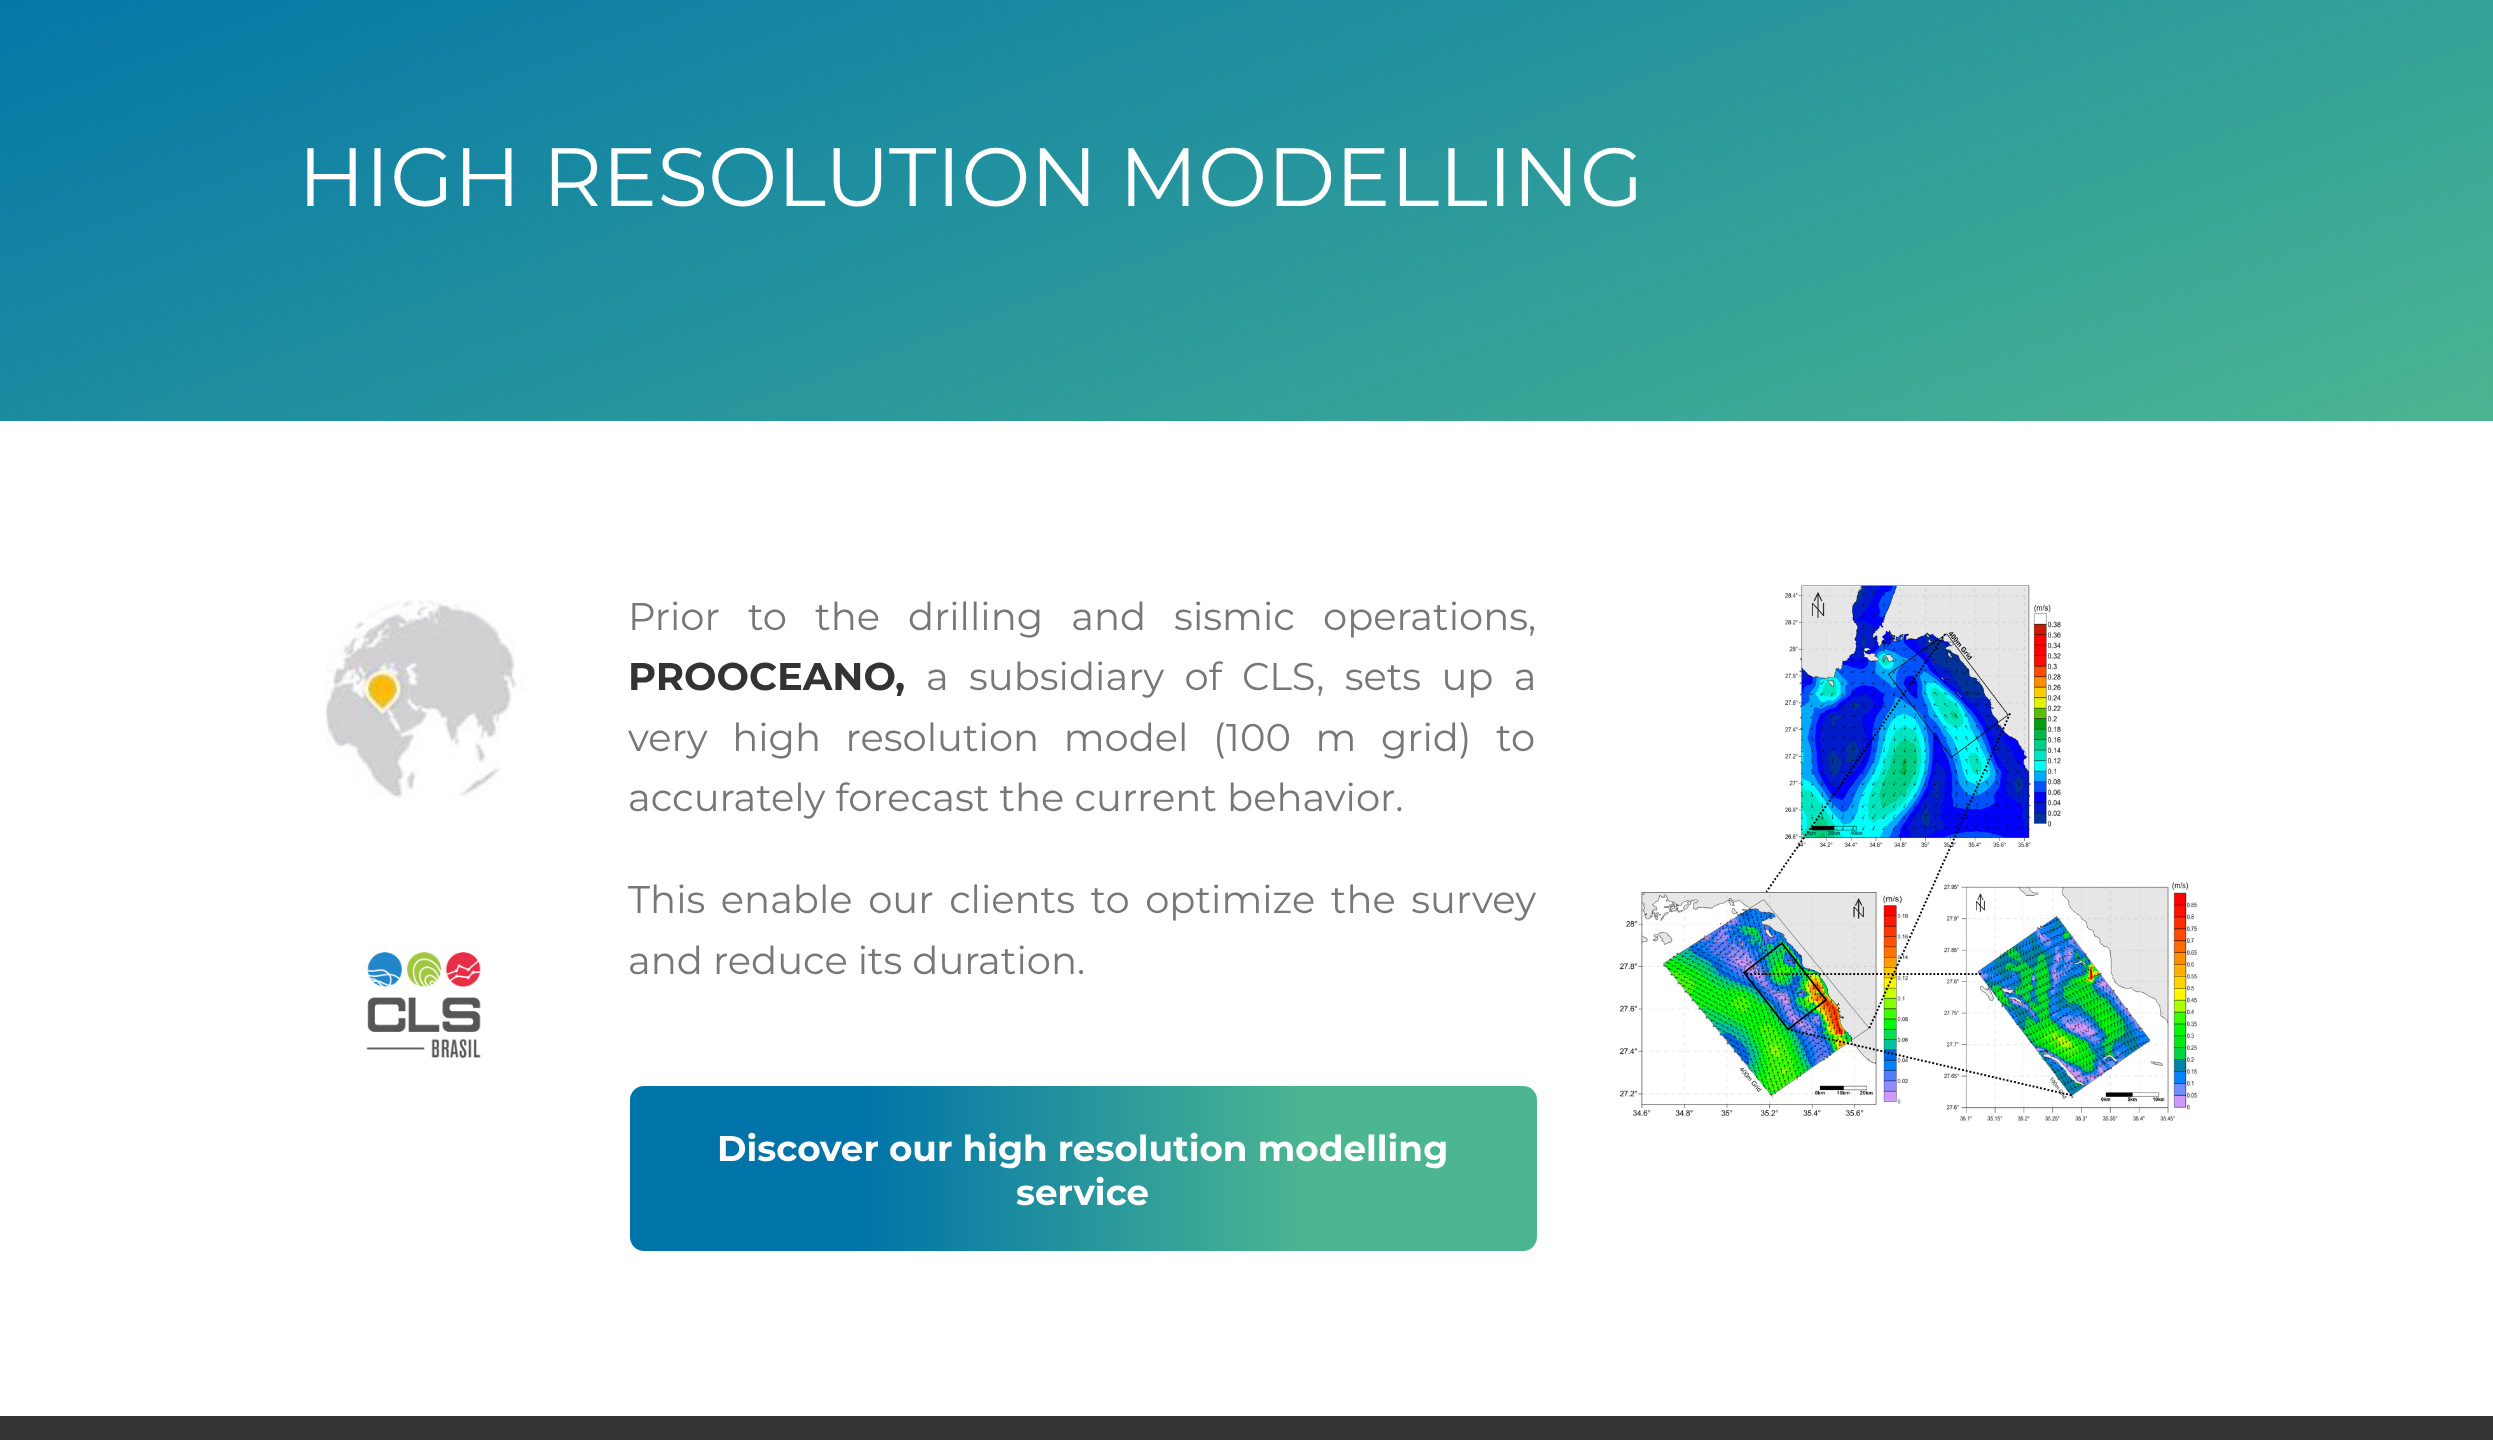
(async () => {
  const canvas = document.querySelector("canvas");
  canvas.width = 2493;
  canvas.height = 1440;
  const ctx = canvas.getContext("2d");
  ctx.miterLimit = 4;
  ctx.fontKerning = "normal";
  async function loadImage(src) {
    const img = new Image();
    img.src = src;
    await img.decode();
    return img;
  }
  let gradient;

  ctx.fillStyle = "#ffffff";
  ctx.fillRect(0, 0, 2493, 1440);
  gradient = ctx.createLinearGradient(93, -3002, 2404, 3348);
  gradient.addColorStop(0, "#0073a9");
  gradient.addColorStop(0.4, "#0073a9");
  gradient.addColorStop(0.6, "#4cb691");
  gradient.addColorStop(1, "#4cb691");
  ctx.fillStyle = gradient;
  ctx.fillRect(0, 0, 2493, 421);
  ctx.drawImage(await loadImage("img/1.png"), 324, 599, 203, 200);
  ctx.drawImage(await loadImage("img/2.png"), 366, 952, 115, 106);
  gradient = ctx.createLinearGradient(630, 1169, 1537, 1169);
  gradient.addColorStop(0, "#0073a9");
  gradient.addColorStop(0.25, "#0073a9");
  gradient.addColorStop(0.75, "#4cb691");
  gradient.addColorStop(1, "#4cb691");
  ctx.fillStyle = gradient;
  ctx.beginPath();
  ctx.roundRect(630, 1086, 907, 165, 14);
  ctx.fill();
  ctx.drawImage(await loadImage("img/3.png"), 1619, 585, 579, 536);
  ctx.fillStyle = "#333333";
  ctx.fillRect(0, 1416, 2493, 24);
  ctx.font = "82.5px Montserrat";
  ctx.fillStyle = "#ffffff";
  ctx.fillText("HIGH RESOLUTION MODELLING", 298, 206);
  ctx.wordSpacing = "18px";
  ctx.font = "38.5px Montserrat";
  ctx.fillStyle = "#777777";
  ctx.fillText("Prior to the drilling and sismic operations,", 628, 630);
  ctx.wordSpacing = "0px";
  ctx.font = "bold 38.5px Montserrat";
  ctx.fillStyle = "#333333";
  ctx.fillText("PROOCEANO,", 628, 690);
  ctx.wordSpacing = "10.25px";
  ctx.font = "38.5px Montserrat";
  ctx.fillStyle = "#777777";
  ctx.fillText("a subsidiary of CLS, sets up a", 926, 690);
  ctx.wordSpacing = "14.5px";
  ctx.fillText("very high resolution model (100 m grid) to", 628, 751);
  ctx.wordSpacing = "0px";
  ctx.fillText("accurately forecast the current behavior.", 628, 811);
  ctx.wordSpacing = "5.5px";
  ctx.fillText("This enable our clients to optimize the survey", 628, 913);
  ctx.wordSpacing = "0px";
  ctx.fillText("and reduce its duration.", 628, 974);
  ctx.font = "bold 35.75px Montserrat";
  ctx.fillStyle = "#ffffff";
  ctx.fillText("Discover our high resolution modelling", 717, 1161);
  ctx.fillText("service", 1016, 1205);
})();
